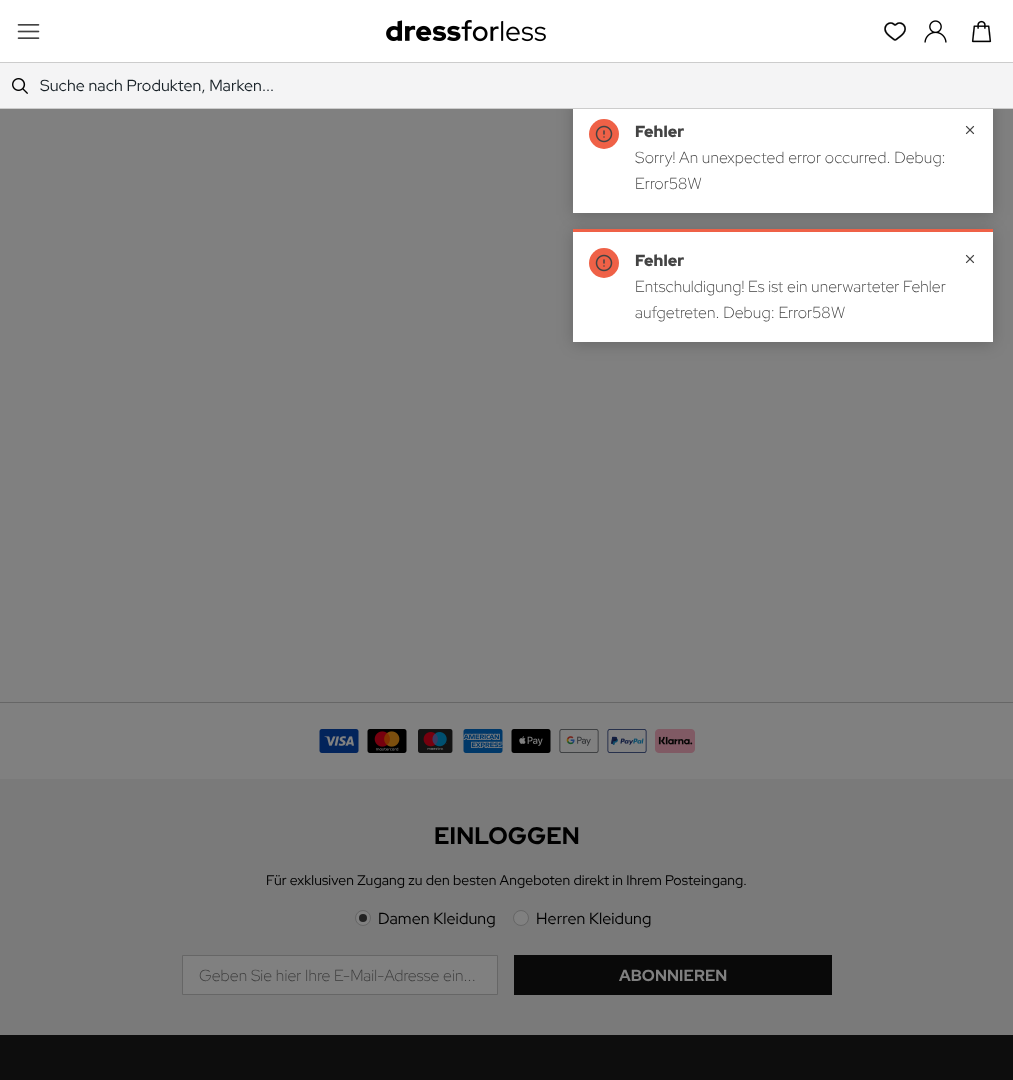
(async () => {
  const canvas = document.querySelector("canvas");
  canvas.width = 1013;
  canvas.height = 1080;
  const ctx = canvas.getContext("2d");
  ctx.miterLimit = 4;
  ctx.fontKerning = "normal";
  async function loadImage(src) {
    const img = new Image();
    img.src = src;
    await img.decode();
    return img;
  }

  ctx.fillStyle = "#808080";
  ctx.fillRect(0, 0, 1013, 1080);
  ctx.fillStyle = "#ffffff";
  ctx.fillRect(0, 0, 1013, 62);
  ctx.drawImage(await loadImage("img/1.png"), 17, 24, 23, 15);
  ctx.drawImage(await loadImage("img/2.png"), 386, 20, 160, 22);
  ctx.drawImage(await loadImage("img/3.png"), 884, 22, 22, 19);
  ctx.drawImage(await loadImage("img/4.png"), 924, 20, 23, 23);
  ctx.drawImage(await loadImage("img/5.png"), 971, 20, 21, 23);
  ctx.fillStyle = "#cccccc";
  ctx.fillRect(0, 62, 1013, 1);
  ctx.fillStyle = "rgba(0, 0, 0, 0.2)";
  ctx.filter = "blur(8px)";
  ctx.beginPath();
  ctx.rect(573, 102, 420, 113);
  ctx.fill();
  ctx.filter = "none";
  ctx.fillStyle = "#cccccc";
  ctx.fillRect(0, 108, 1013, 1);
  ctx.fillStyle = "#f4f4f5";
  ctx.fillRect(0, 63, 1013, 45);
  ctx.drawImage(await loadImage("img/6.png"), 12, 78, 16, 16);
  ctx.fillStyle = "#666666";
  ctx.fillRect(0, 702, 1013, 1);
  ctx.drawImage(await loadImage("img/7.png"), 319, 729, 40, 24);
  ctx.drawImage(await loadImage("img/8.png"), 367, 729, 40, 24);
  ctx.drawImage(await loadImage("img/9.png"), 418, 729, 35, 24);
  ctx.drawImage(await loadImage("img/10.png"), 463, 729, 40, 24);
  ctx.drawImage(await loadImage("img/11.png"), 511, 729, 40, 24);
  ctx.drawImage(await loadImage("img/12.png"), 559, 729, 40, 24);
  ctx.drawImage(await loadImage("img/13.png"), 607, 729, 40, 24);
  ctx.drawImage(await loadImage("img/14.png"), 655, 729, 40, 24);
  ctx.fillStyle = "#7a7a7a";
  ctx.fillRect(0, 779, 1013, 256);
  ctx.fillStyle = "#808080";
  ctx.beginPath();
  ctx.arc(363, 918, 7.5, 0, Math.PI * 2);
  ctx.fill();
  ctx.strokeStyle = "#666666";
  ctx.stroke();
  ctx.fillStyle = "#222222";
  ctx.beginPath();
  ctx.arc(363, 918, 4, 0, Math.PI * 2);
  ctx.fill();
  ctx.fillStyle = "#808080";
  ctx.beginPath();
  ctx.arc(521, 918, 7.5, 0, Math.PI * 2);
  ctx.fill();
  ctx.stroke();
  ctx.beginPath();
  ctx.rect(182.5, 955.5, 315, 39);
  ctx.fill();
  ctx.stroke();
  for (const [x, y, w, h, color] of [
    [514, 955, 318, 40, "#090909"],
    [0, 1035, 1013, 45, "#0d0d0d"],
    [573, 109, 420, 104, "#ffffff"],
  ]) {
    ctx.fillStyle = color;
    ctx.fillRect(x, y, w, h);
  }
  ctx.fillStyle = "#ef6147";
  ctx.beginPath();
  ctx.arc(604, 134, 15, 0, Math.PI * 2);
  ctx.fill();
  ctx.drawImage(await loadImage("img/15.png"), 595, 125, 18, 18);
  ctx.drawImage(await loadImage("img/16.png"), 965, 125, 10, 10);
  ctx.fillStyle = "rgba(0, 0, 0, 0.2)";
  ctx.filter = "blur(8px)";
  ctx.beginPath();
  ctx.rect(573, 231, 420, 113);
  ctx.fill();
  ctx.filter = "none";
  ctx.fillStyle = "#ffffff";
  ctx.fillRect(573, 232, 420, 110);
  ctx.fillStyle = "#ef6147";
  ctx.fillRect(573, 229, 420, 3);
  ctx.beginPath();
  ctx.arc(604, 263, 15, 0, Math.PI * 2);
  ctx.fill();
  ctx.drawImage(await loadImage("img/15.png"), 595, 254, 18, 18);
  ctx.drawImage(await loadImage("img/16.png"), 965, 254, 10, 10);
  ctx.letterSpacing = "0.1px";
  ctx.font = "16px Red Hat Display";
  ctx.fillStyle = "#172026";
  ctx.fillText("Suche nach Produkten, Marken...", 40, 91);
  ctx.font = "bold 24px Red Hat Display";
  ctx.fillStyle = "#000000";
  ctx.fillText("EINLOGGEN", 434, 844);
  ctx.font = "14px Red Hat Display";
  ctx.fillText("Für exklusiven Zugang zu den besten Angeboten direkt in Ihrem Posteingang.", 266, 885);
  ctx.font = "16px Red Hat Display";
  ctx.fillText("Damen Kleidung", 378, 924);
  ctx.fillText("Herren Kleidung", 536, 924);
  ctx.font = "300 16px Red Hat Display";
  ctx.fillStyle = "#3b3b3b";
  ctx.fillText("Geben Sie hier Ihre E-Mail-Adresse ein...", 199, 981);
  ctx.font = "bold 16px Red Hat Display";
  ctx.fillStyle = "#808080";
  ctx.fillText("ABONNIEREN", 619, 981);
  ctx.font = "900 16px Red Hat Display";
  ctx.fillStyle = "#434343";
  ctx.fillText("Fehler", 635, 137);
  ctx.font = "300 16px Red Hat Display";
  ctx.fillText("Sorry! An unexpected error occurred. Debug:", 635, 163);
  ctx.fillText("Error58W", 635, 189);
  ctx.font = "900 16px Red Hat Display";
  ctx.fillText("Fehler", 635, 266);
  ctx.font = "300 16px Red Hat Display";
  ctx.fillText("Entschuldigung! Es ist ein unerwarteter Fehler", 635, 292);
  ctx.fillText("aufgetreten. Debug: Error58W", 635, 318);
})();
